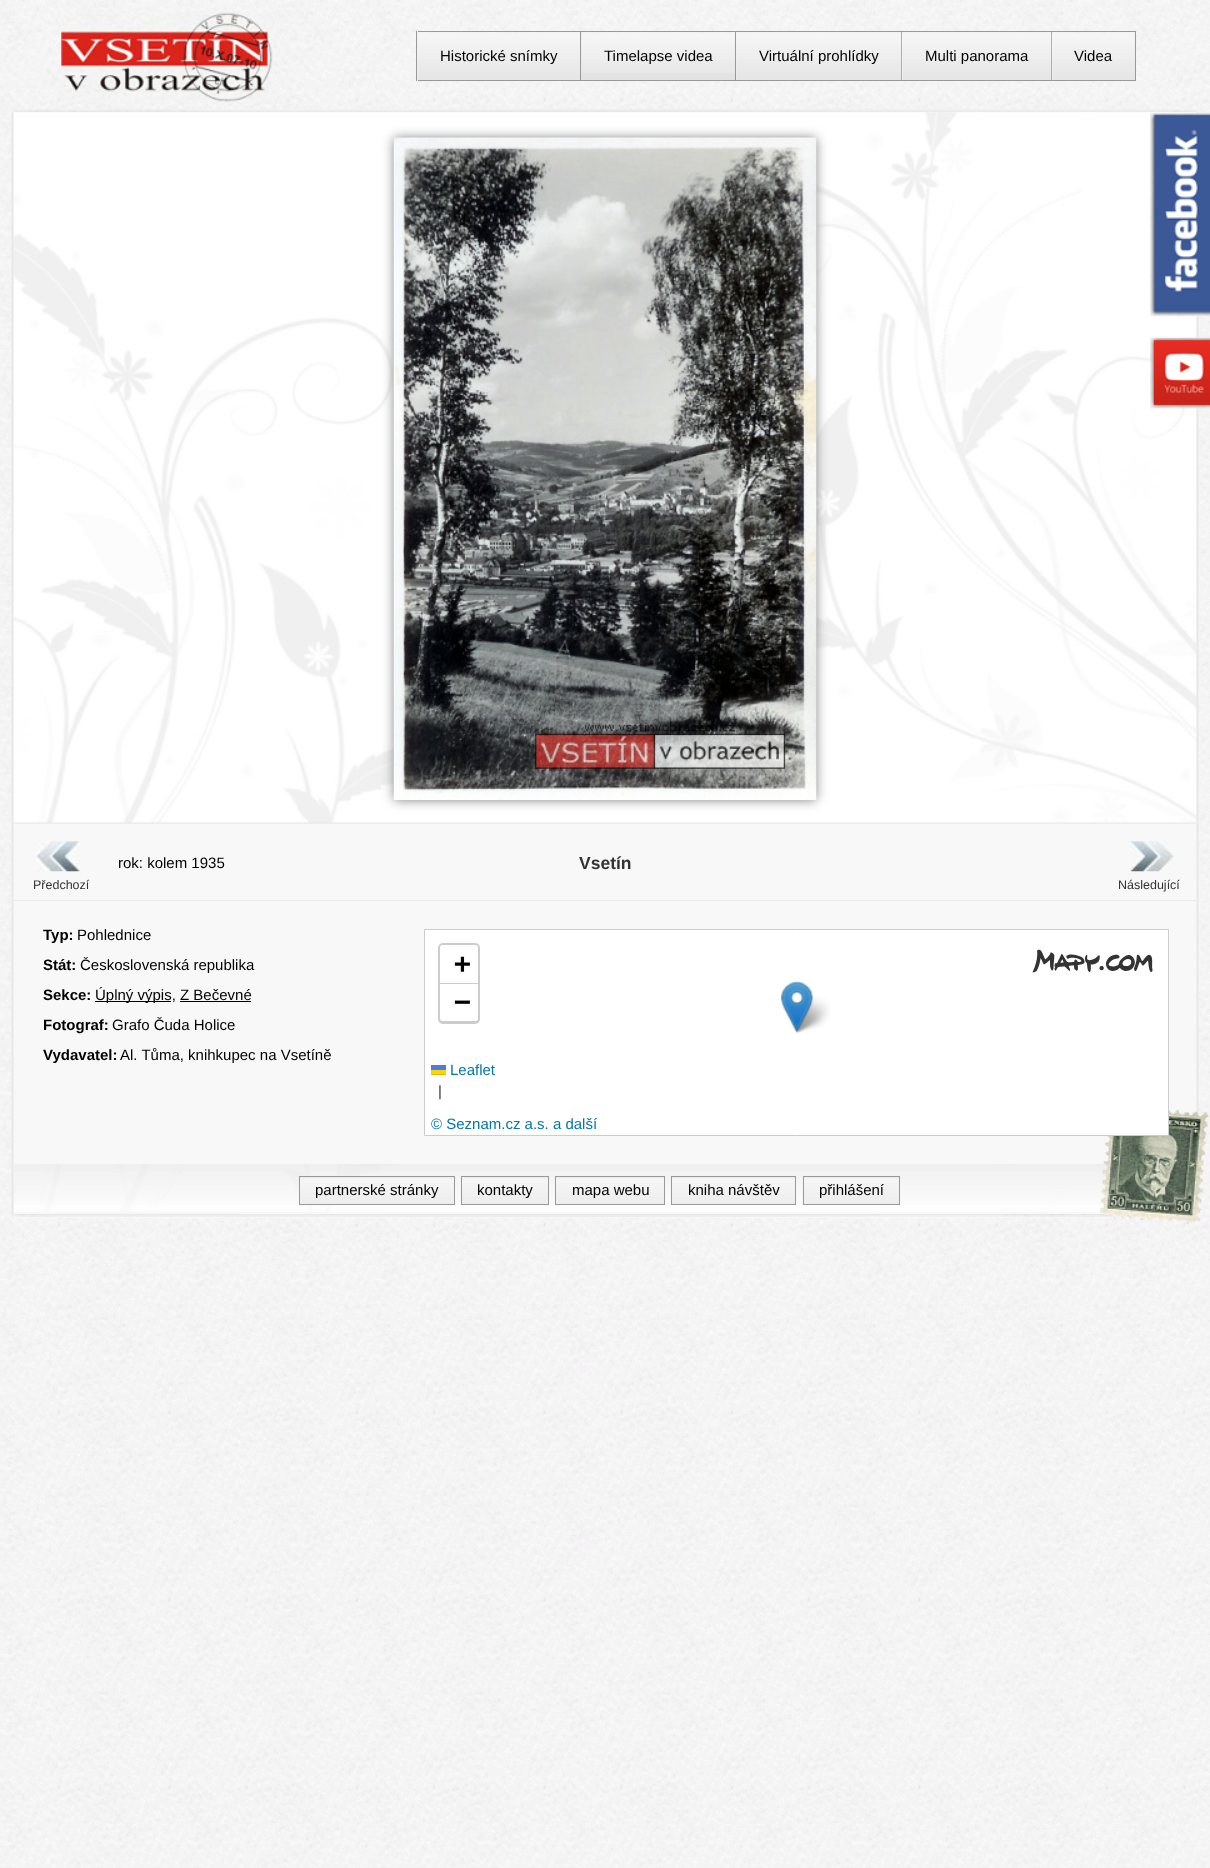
(async () => {
  const canvas = document.querySelector("canvas");
  canvas.width = 1210;
  canvas.height = 1868;
  const ctx = canvas.getContext("2d");
  ctx.miterLimit = 4;
  ctx.fontKerning = "normal";
  async function loadImage(src) {
    const img = new Image();
    img.src = src;
    await img.decode();
    return img;
  }

  ctx.fillStyle = "#ffffff";
  ctx.fillRect(0, 0, 1210, 1868);
  ctx.drawImage(await loadImage("img/1.png"), 0, 0, 1210, 1868);
  ctx.drawImage(await loadImage("img/2.png"), 13, 109, 1185, 4);
  ctx.drawImage(await loadImage("img/3.png"), 61, 12, 212, 90);
  for (const [x, y, w, h, color] of [
    [416, 31, 1, 50, "#999999"],
    [418, 31, 718, 1, "#999999"],
    [580, 31, 1, 50, "#999999"],
    [418, 80, 163, 1, "#999999"],
  ]) {
    ctx.fillStyle = color;
    ctx.fillRect(x, y, w, h);
  }
  ctx.drawImage(await loadImage("img/4.png"), 417, 33, 163, 47);
  for (const [x, y, w, h, color] of [
    [735, 31, 1, 50, "#999999"],
    [581, 80, 155, 1, "#999999"],
    [581, 33, 154, 47, "#e3e3e3"],
  ]) {
    ctx.fillStyle = color;
    ctx.fillRect(x, y, w, h);
  }
  ctx.drawImage(await loadImage("img/5.png"), 581, 33, 154, 40);
  ctx.fillStyle = "#999999";
  ctx.fillRect(901, 31, 1, 50);
  ctx.fillRect(736, 80, 167, 1);
  ctx.drawImage(await loadImage("img/6.png"), 736, 32, 166, 48);
  ctx.fillRect(1051, 31, 1, 50);
  ctx.fillRect(903, 80, 150, 1);
  ctx.drawImage(await loadImage("img/7.png"), 902, 32, 150, 48);
  ctx.fillRect(1135, 31, 1, 50);
  ctx.fillRect(1053, 80, 83, 1);
  ctx.drawImage(await loadImage("img/8.png"), 1052, 33, 83, 47);
  ctx.drawImage(await loadImage("img/9.png"), 11, 112, 1188, 1106);
  ctx.drawImage(await loadImage("img/10.png"), 13, 112, 1184, 1102);
  ctx.fillStyle = "#808080";
  ctx.filter = "blur(6px)";
  ctx.beginPath();
  ctx.rect(394, 138, 422, 662);
  ctx.fill();
  ctx.filter = "none";
  ctx.drawImage(await loadImage("img/11.png"), 393, 137, 424, 663);
  ctx.drawImage(await loadImage("img/12.png"), 36, 841, 44, 31);
  ctx.drawImage(await loadImage("img/13.png"), 1130, 841, 44, 31);
  ctx.drawImage(await loadImage("img/18.png"), 14, 1164, 1094, 48);
  ctx.drawImage(await loadImage("img/19.png"), 12, 1214, 1186, 4);
  ctx.drawImage(await loadImage("img/14.png"), 1100, 1109, 109, 115);
  for (const [x, y, w, h, color] of [
    [11, 900, 1188, 1, "#ebebeb"],
    [95, 1001, 76, 1, "#000000"],
    [180, 1001, 71, 1, "#000000"],
  ]) {
    ctx.fillStyle = color;
    ctx.fillRect(x, y, w, h);
  }
  ctx.fillStyle = "#ffffff";
  ctx.beginPath();
  ctx.rect(424.5, 929.5, 744, 206);
  ctx.fill();
  ctx.strokeStyle = "#cccccc";
  ctx.stroke();
  ctx.beginPath();
  ctx.roundRect(439.5, 944.5, 39, 78, 3.5);
  ctx.lineWidth = 3;
  ctx.stroke();
  ctx.beginPath();
  ctx.roundRect(440, 945, 38, 39, [2.5, 2.5, 0, 0]);
  ctx.fill();
  ctx.fillStyle = "#cccccc";
  ctx.fillRect(440, 983, 38, 1);
  ctx.fillStyle = "#ffffff";
  ctx.beginPath();
  ctx.roundRect(440, 984, 38, 37, [0, 0, 2.5, 2.5]);
  ctx.fill();
  ctx.drawImage(await loadImage("img/15.png"), 1032, 949, 121, 24);
  for (const [x, y, w, h, color] of [
    [431, 1065, 15, 5, "#4c7be1"],
    [431, 1070, 15, 4, "#ffd500"],
    [431, 1074, 15, 1, "#e0bc00"],
  ]) {
    ctx.fillStyle = color;
    ctx.fillRect(x, y, w, h);
  }
  ctx.drawImage(await loadImage("img/17.png"), 792, 997, 38, 36);
  ctx.drawImage(await loadImage("img/16.png"), 781, 981, 33, 52);
  ctx.fillStyle = "#e3e3e3";
  ctx.fillRect(300, 1177, 154, 1);
  ctx.drawImage(await loadImage("img/20.png"), 300, 1177, 154, 27);
  ctx.strokeStyle = "#999999";
  ctx.lineWidth = 1;
  ctx.strokeRect(299.5, 1176.5, 155, 28);
  ctx.fillRect(462, 1177, 86, 1);
  ctx.drawImage(await loadImage("img/21.png"), 462, 1177, 86, 27);
  ctx.strokeRect(461.5, 1176.5, 87, 28);
  ctx.fillRect(556, 1177, 108, 1);
  ctx.drawImage(await loadImage("img/22.png"), 556, 1177, 108, 27);
  ctx.strokeRect(555.5, 1176.5, 109, 28);
  ctx.fillRect(672, 1177, 123, 1);
  ctx.drawImage(await loadImage("img/23.png"), 672, 1177, 123, 27);
  ctx.strokeRect(671.5, 1176.5, 124, 28);
  ctx.fillRect(804, 1177, 95, 1);
  ctx.drawImage(await loadImage("img/24.png"), 802, 1177, 97, 28);
  ctx.strokeRect(803.5, 1176.5, 96, 28);
  ctx.drawImage(await loadImage("img/25.png"), 1150, 112, 60, 205);
  ctx.drawImage(await loadImage("img/26.png"), 1150, 337, 60, 72);
  ctx.font = "15px Liberation Sans";
  ctx.fillStyle = "#000000";
  for (const [text, x, y] of [
    ["Historické snímky", 440, 61],
    ["Timelapse videa", 604, 61],
    ["Virtuální prohlídky", 759, 61],
    ["Multi panorama", 925, 61],
    ["Videa", 1074, 61],
    ["rok: kolem 1935", 118, 868],
  ]) {
    ctx.fillText(text, x, y);
  }
  ctx.font = "bold 17.5px Liberation Sans";
  ctx.fillStyle = "#333333";
  ctx.fillText("Vsetín", 579, 869);
  ctx.font = "12.5px Liberation Sans";
  ctx.fillText("Předchozí", 33, 889);
  ctx.fillText("Následující", 1118, 889);
  ctx.font = "bold 15px Liberation Sans";
  ctx.fillStyle = "#000000";
  ctx.fillText("Typ:", 43, 940);
  ctx.font = "15px Liberation Sans";
  ctx.fillText("Pohlednice", 77, 940);
  ctx.font = "bold 15px Liberation Sans";
  ctx.fillText("Stát:", 43, 970);
  ctx.font = "15px Liberation Sans";
  ctx.fillText("Československá republika", 80, 970);
  ctx.font = "bold 15px Liberation Sans";
  ctx.fillText("Sekce:", 43, 1000);
  ctx.font = "15px Liberation Sans";
  ctx.fillText("Úplný výpis, Z Bečevné", 95, 1000);
  ctx.font = "bold 15px Liberation Sans";
  ctx.fillText("Fotograf:", 43, 1030);
  ctx.font = "15px Liberation Sans";
  ctx.fillText("Grafo Čuda Holice", 112, 1030);
  ctx.font = "bold 15px Liberation Sans";
  ctx.fillText("Vydavatel:", 43, 1060);
  ctx.font = "15px Liberation Sans";
  ctx.fillText("Al. Tůma, knihkupec na Vsetíně", 120, 1060);
  ctx.font = "bold 28px DejaVu Sans Mono";
  ctx.fillText("+", 454, 973);
  ctx.fillText("−", 454, 1011);
  ctx.font = "15px Liberation Sans";
  ctx.fillStyle = "#0078a8";
  ctx.fillText("Leaflet", 450, 1075);
  ctx.fillStyle = "#333333";
  ctx.fillText("|", 438, 1096);
  ctx.fillStyle = "#0078a8";
  ctx.fillText("© Seznam.cz a.s. a další", 431, 1129);
  ctx.fillStyle = "#000000";
  for (const [text, x, y] of [
    ["partnerské stránky", 315, 1195],
    ["kontakty", 477, 1195],
    ["mapa webu", 572, 1195],
    ["kniha návštěv", 688, 1195],
    ["přihlášení", 819, 1195],
  ]) {
    ctx.fillText(text, x, y);
  }
})();
